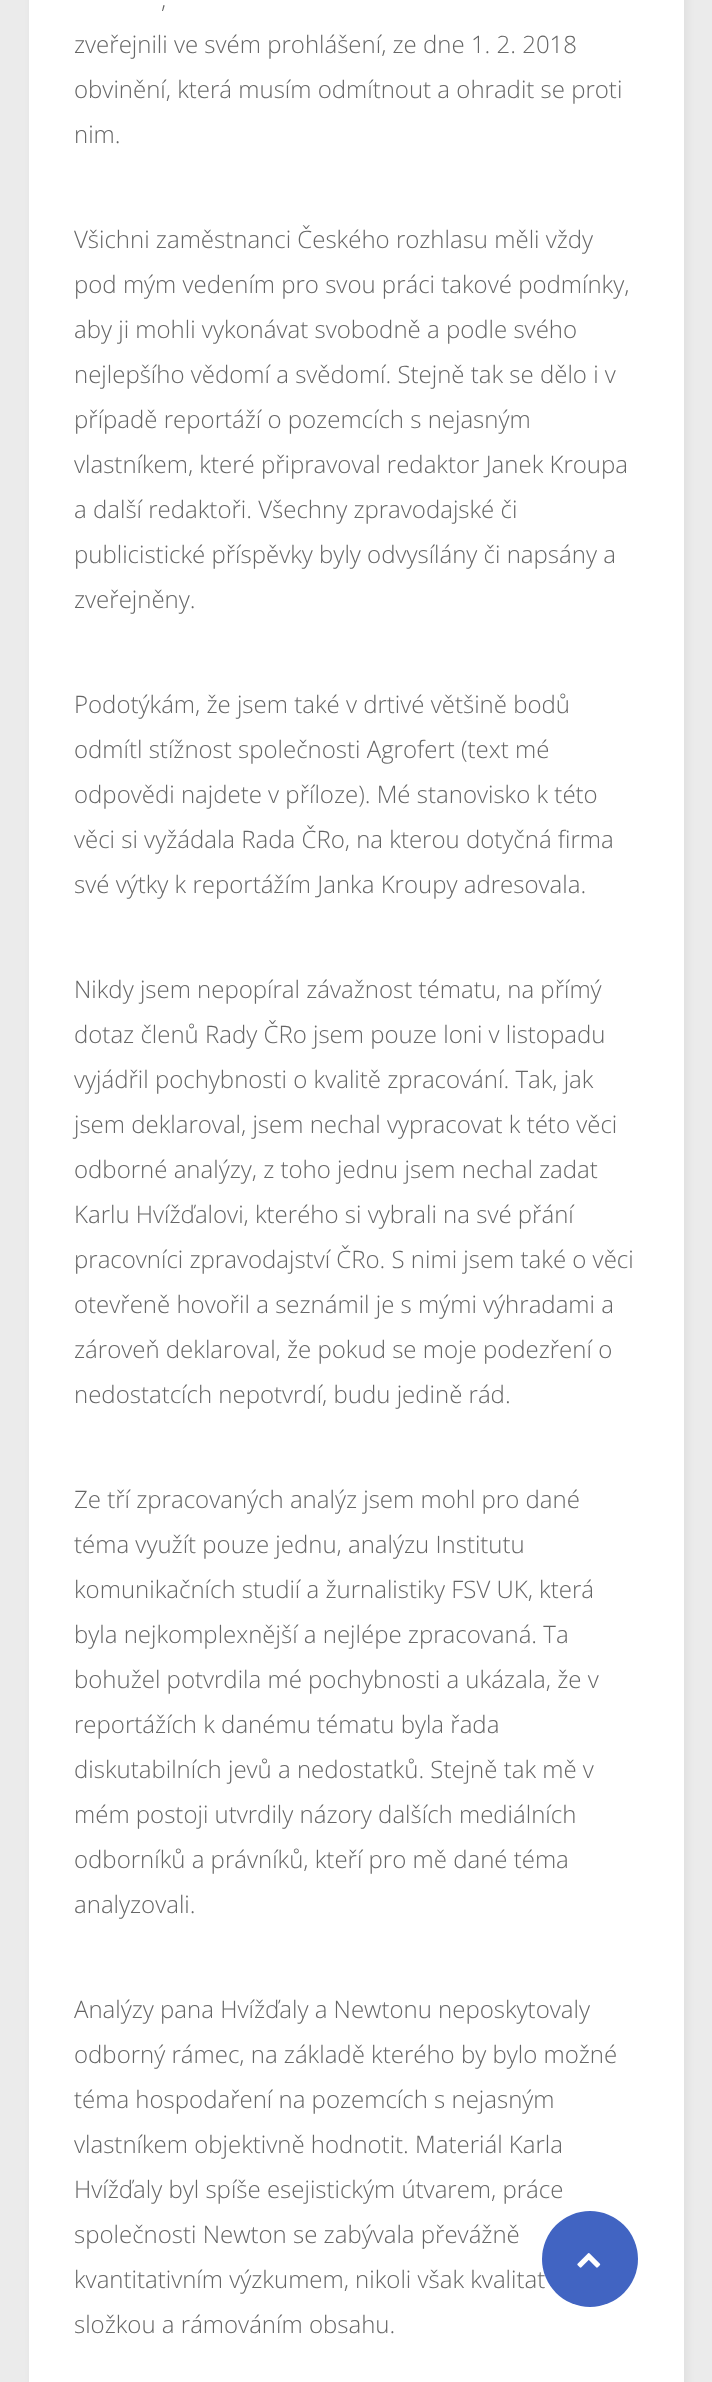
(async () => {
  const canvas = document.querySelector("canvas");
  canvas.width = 712;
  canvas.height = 2382;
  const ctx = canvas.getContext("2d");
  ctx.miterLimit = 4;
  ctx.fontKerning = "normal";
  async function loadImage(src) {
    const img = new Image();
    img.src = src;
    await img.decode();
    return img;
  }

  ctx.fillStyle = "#ebebeb";
  ctx.fillRect(0, 0, 712, 2382);
  ctx.fillStyle = "rgba(0, 0, 0, 0.05)";
  ctx.filter = "blur(4px)";
  ctx.beginPath();
  ctx.rect(32, -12, 655, 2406);
  ctx.fill();
  ctx.filter = "none";
  ctx.fillStyle = "#ffffff";
  ctx.fillRect(29, 0, 655, 2382);
  ctx.font = "300 24px Open Sans";
  ctx.fillStyle = "#666666";
  for (const [text, x, y] of [
    [",", 161, 8],
    ["zveřejnili ve svém prohlášení, ze dne 1. 2. 2018", 74, 53],
    ["obvinění, která musím odmítnout a ohradit se proti", 74, 98],
    ["nim.", 74, 143],
    ["Všichni zaměstnanci Českého rozhlasu měli vždy", 74, 248],
    ["pod mým vedením pro svou práci takové podmínky,", 74, 293],
    ["aby ji mohli vykonávat svobodně a podle svého", 74, 338],
    ["nejlepšího vědomí a svědomí. Stejně tak se dělo i v", 74, 383],
    ["případě reportáží o pozemcích s nejasným", 74, 428],
    ["vlastníkem, které připravoval redaktor Janek Kroupa", 74, 473],
    ["a další redaktoři. Všechny zpravodajské či", 74, 518],
    ["publicistické příspěvky byly odvysílány či napsány a", 74, 563],
    ["zveřejněny.", 74, 608],
    ["Podotýkám, že jsem také v drtivé většině bodů", 74, 713],
    ["odmítl stížnost společnosti Agrofert (text mé", 74, 758],
    ["odpovědi najdete v příloze). Mé stanovisko k této", 74, 803],
    ["věci si vyžádala Rada ČRo, na kterou dotyčná firma", 74, 848],
    ["své výtky k reportážím Janka Kroupy adresovala.", 74, 893],
    ["Nikdy jsem nepopíral závažnost tématu, na přímý", 74, 998],
    ["dotaz členů Rady ČRo jsem pouze loni v listopadu", 74, 1043],
    ["vyjádřil pochybnosti o kvalitě zpracování. Tak, jak", 74, 1088],
    ["jsem deklaroval, jsem nechal vypracovat k této věci", 74, 1133],
    ["odborné analýzy, z toho jednu jsem nechal zadat", 74, 1178],
    ["Karlu Hvížďalovi, kterého si vybrali na své přání", 74, 1223],
    ["pracovníci zpravodajství ČRo. S nimi jsem také o věci", 74, 1268],
    ["otevřeně hovořil a seznámil je s mými výhradami a", 74, 1313],
    ["zároveň deklaroval, že pokud se moje podezření o", 74, 1358],
    ["nedostatcích nepotvrdí, budu jedině rád.", 74, 1403],
    ["Ze tří zpracovaných analýz jsem mohl pro dané", 74, 1508],
    ["téma využít pouze jednu, analýzu Institutu", 74, 1553],
    ["komunikačních studií a žurnalistiky FSV UK, která", 74, 1598],
    ["byla nejkomplexnější a nejlépe zpracovaná. Ta", 74, 1643],
    ["bohužel potvrdila mé pochybnosti a ukázala, že v", 74, 1688],
    ["reportážích k danému tématu byla řada", 74, 1733],
    ["diskutabilních jevů a nedostatků. Stejně tak mě v", 74, 1778],
    ["mém postoji utvrdily názory dalších mediálních", 74, 1823],
    ["odborníků a právníků, kteří pro mě dané téma", 74, 1868],
    ["analyzovali.", 74, 1913],
    ["Analýzy pana Hvížďaly a Newtonu neposkytovaly", 74, 2018],
    ["odborný rámec, na základě kterého by bylo možné", 74, 2063],
    ["téma hospodaření na pozemcích s nejasným", 74, 2108],
    ["vlastníkem objektivně hodnotit. Materiál Karla", 74, 2153],
    ["Hvížďaly byl spíše esejistickým útvarem, práce", 74, 2198],
    ["společnosti Newton se zabývala převážně", 74, 2243],
    ["kvantitativním výzkumem, nikoli však kvalitat", 74, 2288],
    ["složkou a rámováním obsahu.", 74, 2333],
  ]) {
    ctx.fillText(text, x, y);
  }
  ctx.fillStyle = "#4164c2";
  ctx.beginPath();
  ctx.arc(590, 2259, 48, 0, Math.PI * 2);
  ctx.fill();
  ctx.drawImage(await loadImage("img/1.png"), 577, 2253, 24, 15);
})();
